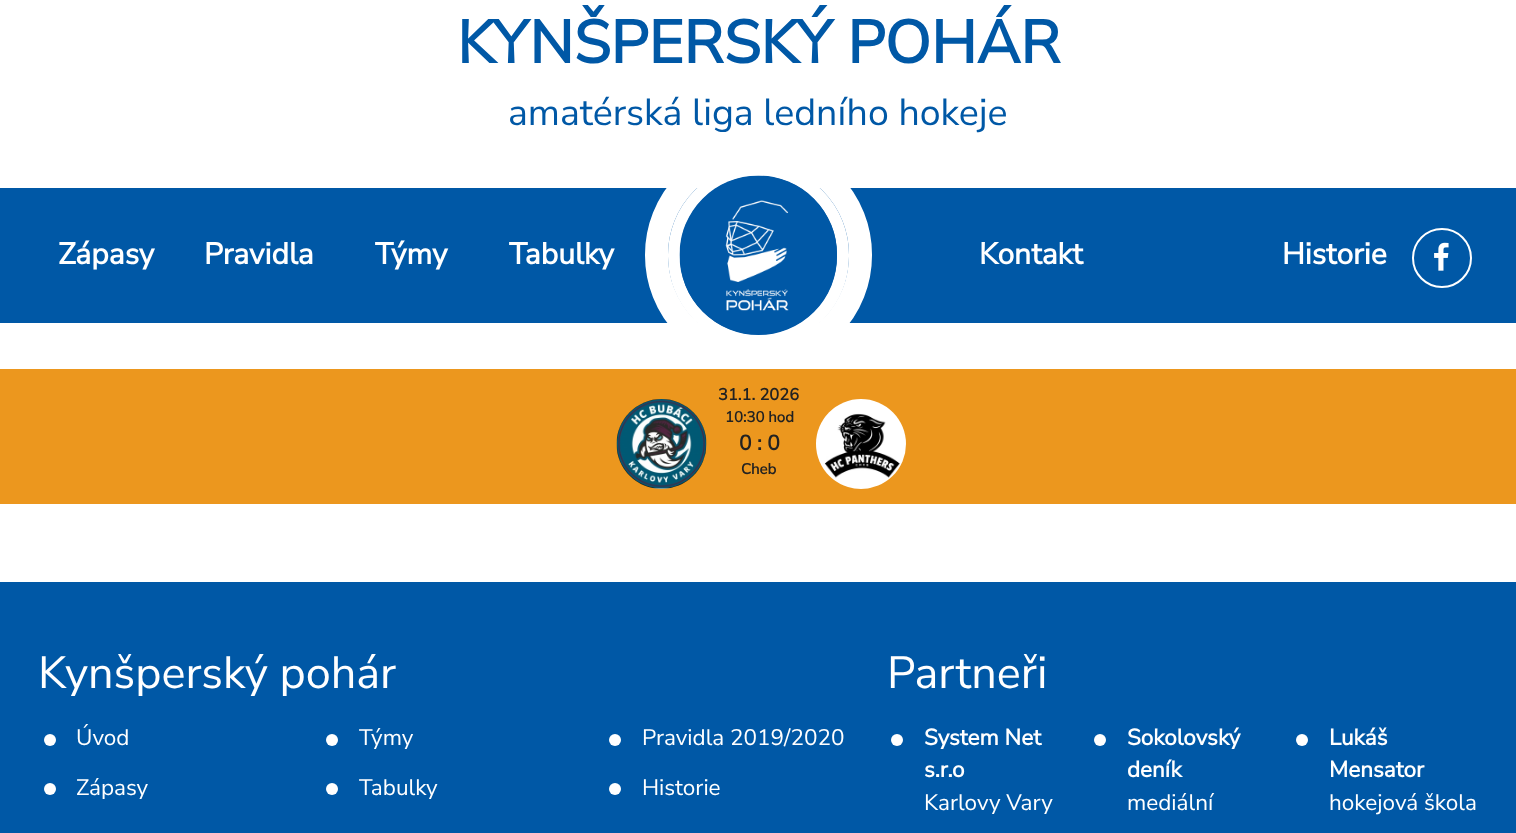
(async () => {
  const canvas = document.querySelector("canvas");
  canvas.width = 1516;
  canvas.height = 833;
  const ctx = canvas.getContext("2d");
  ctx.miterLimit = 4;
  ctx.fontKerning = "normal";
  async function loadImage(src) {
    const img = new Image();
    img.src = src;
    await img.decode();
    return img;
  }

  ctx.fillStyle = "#ffffff";
  ctx.fillRect(0, 0, 1516, 833);
  ctx.fillStyle = "#0058a6";
  ctx.fillRect(0, 188, 1516, 135);
  ctx.beginPath();
  ctx.roundRect(656.5, 152.5, 204, 205, 102);
  ctx.strokeStyle = "#ffffff";
  ctx.lineWidth = 23;
  ctx.stroke();
  ctx.beginPath();
  ctx.roundRect(674, 170, 169, 171, 84.5);
  ctx.fill();
  ctx.lineWidth = 12;
  ctx.stroke();
  ctx.drawImage(await loadImage("img/1.png"), 679, 175, 158, 160);
  ctx.beginPath();
  ctx.arc(1442, 258, 29, 0, Math.PI * 2);
  ctx.lineWidth = 2;
  ctx.stroke();
  ctx.drawImage(await loadImage("img/2.png"), 1434, 242, 15, 29);
  ctx.fillStyle = "#ec971e";
  ctx.fillRect(0, 369, 1516, 135);
  ctx.drawImage(await loadImage("img/3.png"), 616, 399, 91, 90);
  ctx.drawImage(await loadImage("img/4.png"), 816, 399, 90, 90);
  ctx.fillStyle = "#0058a6";
  ctx.fillRect(0, 582, 1516, 251);
  ctx.fillStyle = "#ffffff";
  ctx.beginPath();
  ctx.arc(50, 740, 6, 0, Math.PI * 2);
  ctx.fill();
  ctx.beginPath();
  ctx.arc(50, 789, 6, 0, Math.PI * 2);
  ctx.fill();
  ctx.beginPath();
  ctx.arc(332, 740, 6, 0, Math.PI * 2);
  ctx.fill();
  ctx.beginPath();
  ctx.arc(332, 789, 6, 0, Math.PI * 2);
  ctx.fill();
  ctx.beginPath();
  ctx.arc(615, 740, 6, 0, Math.PI * 2);
  ctx.fill();
  ctx.beginPath();
  ctx.arc(615, 789, 6, 0, Math.PI * 2);
  ctx.fill();
  ctx.beginPath();
  ctx.arc(897, 740, 6, 0, Math.PI * 2);
  ctx.fill();
  ctx.beginPath();
  ctx.arc(1100, 740, 6, 0, Math.PI * 2);
  ctx.fill();
  ctx.beginPath();
  ctx.arc(1302, 740, 6, 0, Math.PI * 2);
  ctx.fill();
  ctx.font = "bold 60px Nunito Sans";
  ctx.fillStyle = "#0058a6";
  ctx.fillText("KYNŠPERSKÝ POHÁR", 457, 63);
  ctx.font = "200 37.5px Nunito Sans";
  ctx.fillText("amatérská liga ledního hokeje", 508, 125);
  ctx.font = "bold 30px Nunito Sans";
  ctx.fillStyle = "#ffffff";
  for (const [text, x, y] of [
    ["Zápasy", 58, 264],
    ["Pravidla", 204, 264],
    ["Týmy", 375, 264],
    ["Tabulky", 509, 264],
    ["Kontakt", 979, 264],
    ["Historie", 1282, 264],
  ]) {
    ctx.fillText(text, x, y);
  }
  ctx.font = "bold 16.5px Nunito Sans";
  ctx.fillStyle = "#222222";
  ctx.fillText("31.1. 2026", 718, 400);
  ctx.font = "bold 15px Nunito Sans";
  ctx.fillText("10:30 hod", 725, 422);
  ctx.font = "bold 21px Nunito Sans";
  ctx.fillText("0 : 0", 739, 450);
  ctx.font = "bold 15px Nunito Sans";
  ctx.fillText("Cheb", 741, 474);
  ctx.font = "200 45px Nunito Sans";
  ctx.fillStyle = "#ffffff";
  ctx.fillText("Kynšperský pohár", 38, 688);
  ctx.font = "200 22.5px Nunito Sans";
  for (const [text, x, y] of [
    ["Úvod", 76, 745],
    ["Zápasy", 76, 795],
    ["Týmy", 359, 745],
    ["Tabulky", 359, 795],
    ["Pravidla 2019/2020", 642, 745],
    ["Historie", 642, 795],
  ]) {
    ctx.fillText(text, x, y);
  }
  ctx.font = "200 45px Nunito Sans";
  ctx.fillText("Partneři", 887, 688);
  ctx.font = "bold 22.5px Nunito Sans";
  ctx.fillText("System Net", 924, 745);
  ctx.fillText("s.r.o", 924, 777);
  ctx.font = "200 22.5px Nunito Sans";
  ctx.fillText("Karlovy Vary", 924, 810);
  ctx.font = "bold 22.5px Nunito Sans";
  ctx.fillText("Sokolovský", 1127, 745);
  ctx.fillText("deník", 1127, 777);
  ctx.font = "200 22.5px Nunito Sans";
  ctx.fillText("mediální", 1127, 810);
  ctx.font = "bold 22.5px Nunito Sans";
  ctx.fillText("Lukáš", 1329, 745);
  ctx.fillText("Mensator", 1329, 777);
  ctx.font = "200 22.5px Nunito Sans";
  ctx.fillText("hokejová škola", 1329, 810);
})();
